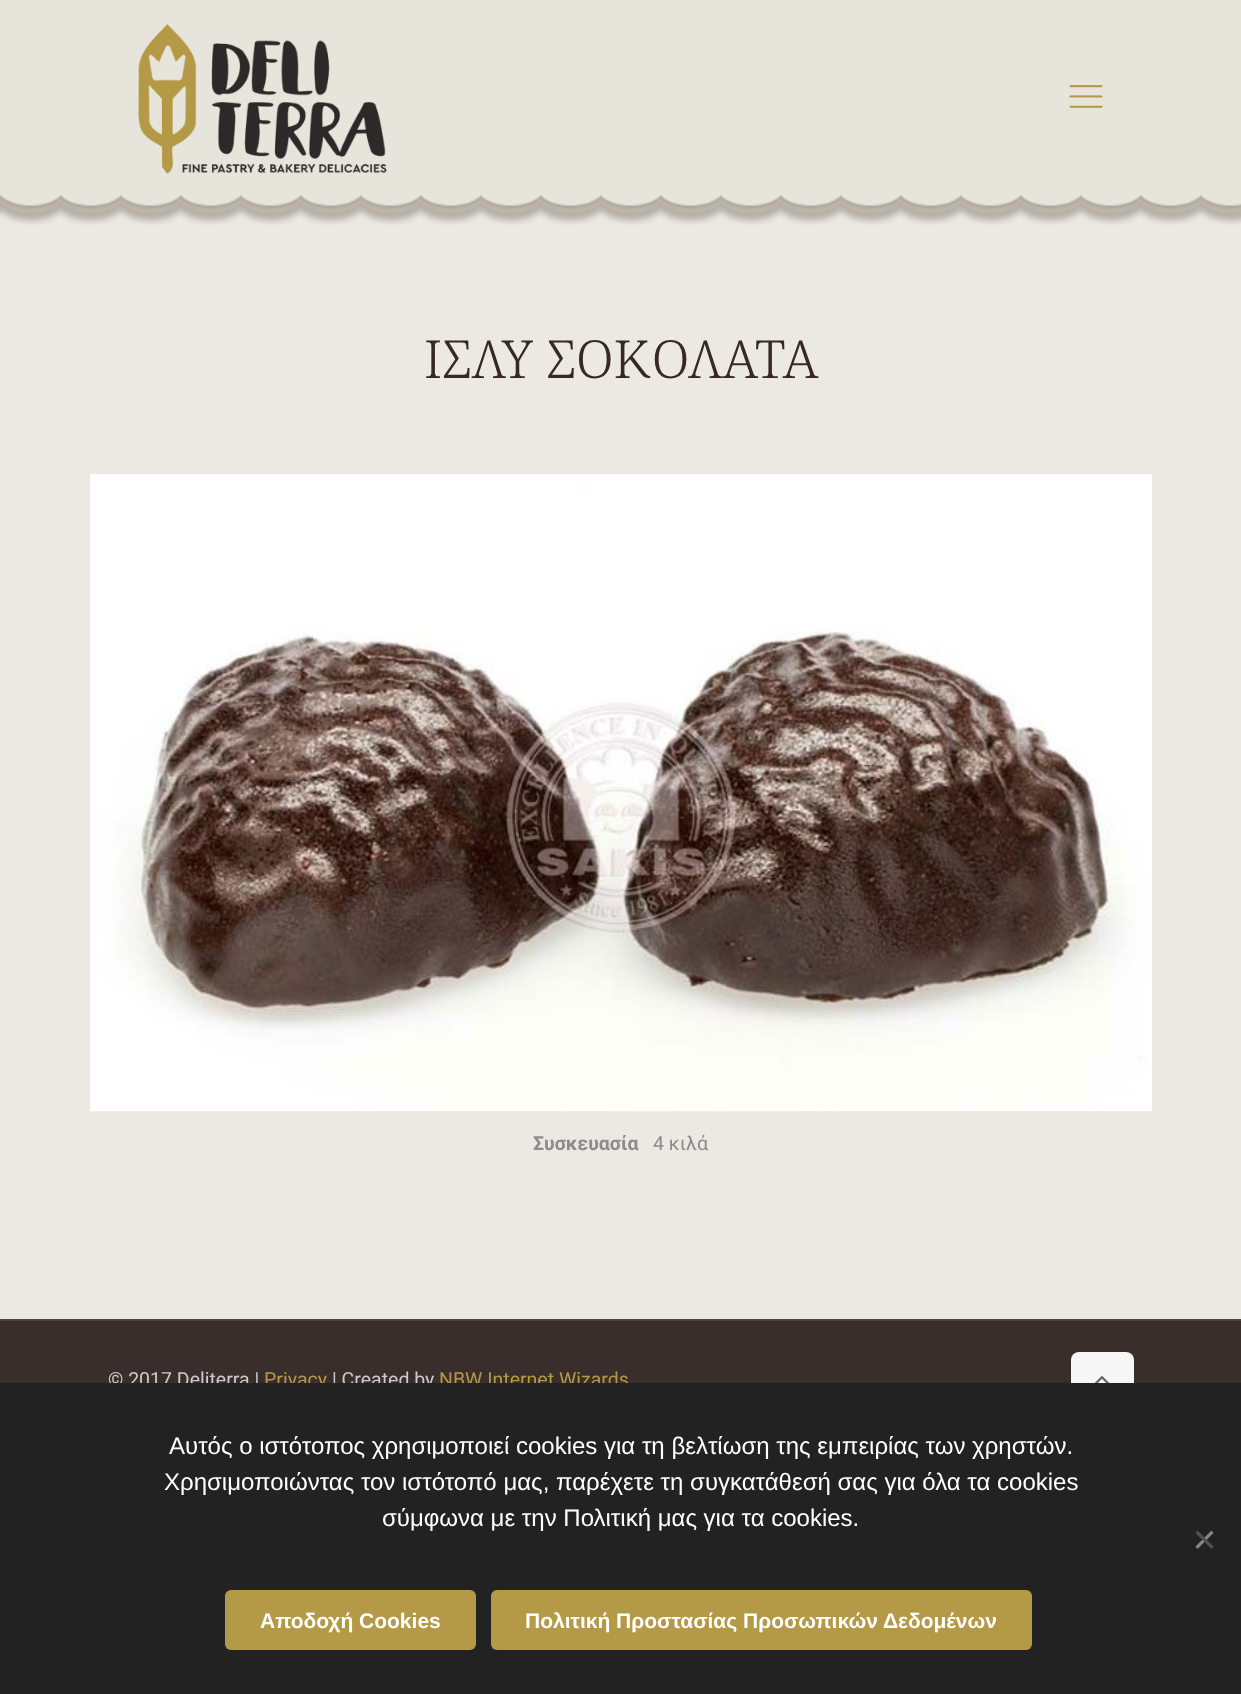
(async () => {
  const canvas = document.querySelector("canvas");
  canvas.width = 1241;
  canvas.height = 1694;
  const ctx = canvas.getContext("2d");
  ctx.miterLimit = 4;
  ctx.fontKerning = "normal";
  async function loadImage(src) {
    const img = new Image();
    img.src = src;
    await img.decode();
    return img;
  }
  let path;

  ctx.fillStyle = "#ece9e2";
  ctx.fillRect(0, 0, 1241, 1694);
  ctx.fillStyle = "#e7e4db";
  ctx.fillRect(0, 0, 1241, 195);
  ctx.drawImage(await loadImage("img/1.png"), 138, 24, 249, 150);
  ctx.drawImage(await loadImage("img/2.png"), 1069, 85, 34, 23);
  ctx.drawImage(await loadImage("img/3.png"), 0, 195, 1241, 30);
  ctx.drawImage(await loadImage("img/4.png"), 90, 474, 1062, 638);
  ctx.fillStyle = "#392e2c";
  ctx.fillRect(0, 1321, 1241, 62);
  ctx.fillStyle = "#4d4341";
  ctx.fillRect(0, 1319, 1241, 2);
  ctx.fillStyle = "#f7f7f7";
  ctx.beginPath();
  ctx.roundRect(1071, 1352, 63, 63, 8);
  ctx.fill();
  ctx.drawImage(await loadImage("img/5.png"), 1094, 1376, 16, 7);
  ctx.font = "300 52.5px Noto Serif";
  ctx.fillStyle = "#372921";
  ctx.fillText("ΙΣΛΥ ΣΟΚΟΛΑΤΑ", 424, 378);
  ctx.font = "bold 19.5px Roboto";
  ctx.fillStyle = "#8c8c8c";
  ctx.fillText("Συσκευασία", 533, 1150);
  ctx.font = "19.5px Roboto";
  ctx.fillText("4 κιλά", 653, 1150);
  ctx.fillStyle = "#cccccc";
  ctx.fillText("© 2017 Deliterra |", 108, 1386);
  ctx.fillStyle = "#b49a46";
  ctx.fillText("Privacy", 264, 1386);
  ctx.fillStyle = "#cccccc";
  ctx.fillText("| Created by", 332, 1386);
  ctx.fillStyle = "#b49a46";
  ctx.fillText("NBW Internet Wizards", 439, 1386);
  ctx.fillStyle = "#222222";
  ctx.fillRect(0, 1383, 1241, 311);
  ctx.font = "24px Liberation Sans";
  ctx.fillStyle = "#ffffff";
  for (const [text, x, y] of [
    ["Αυτός ο ιστότοπος χρησιμοποιεί cookies για τη βελτίωση της εμπειρίας των χρηστών.", 169, 1454],
    ["Χρησιμοποιώντας τον ιστότοπό μας, παρέχετε τη συγκατάθεσή σας για όλα τα cookies", 164, 1490],
    ["σύμφωνα με την Πολιτική μας για τα cookies.", 382, 1526],
  ]) {
    ctx.fillText(text, x, y);
  }
  ctx.fillStyle = "#868686";
  path = new Path2D("M1211.5 1530.5L1213.5 1533L1197.5 1549L1195.5 1546.5Z");
  ctx.fill(path);
  ctx.fillStyle = "#515151";
  path = new Path2D("M1195.5 1533L1197.5 1530.5L1213.5 1546.5L1211.5 1549Z");
  ctx.fill(path);
  ctx.fillStyle = "#b49a46";
  ctx.beginPath();
  ctx.roundRect(225, 1590, 251, 60, 6);
  ctx.fill();
  ctx.font = "bold 21px Liberation Sans";
  ctx.fillStyle = "#ffffff";
  ctx.fillText("Αποδοχή Cookies", 260, 1628);
  ctx.fillStyle = "#b49a46";
  ctx.beginPath();
  ctx.roundRect(491, 1590, 541, 60, 6);
  ctx.fill();
  ctx.fillStyle = "#ffffff";
  ctx.fillText("Πολιτική Προστασίας Προσωπικών Δεδομένων", 525, 1628);
})();
